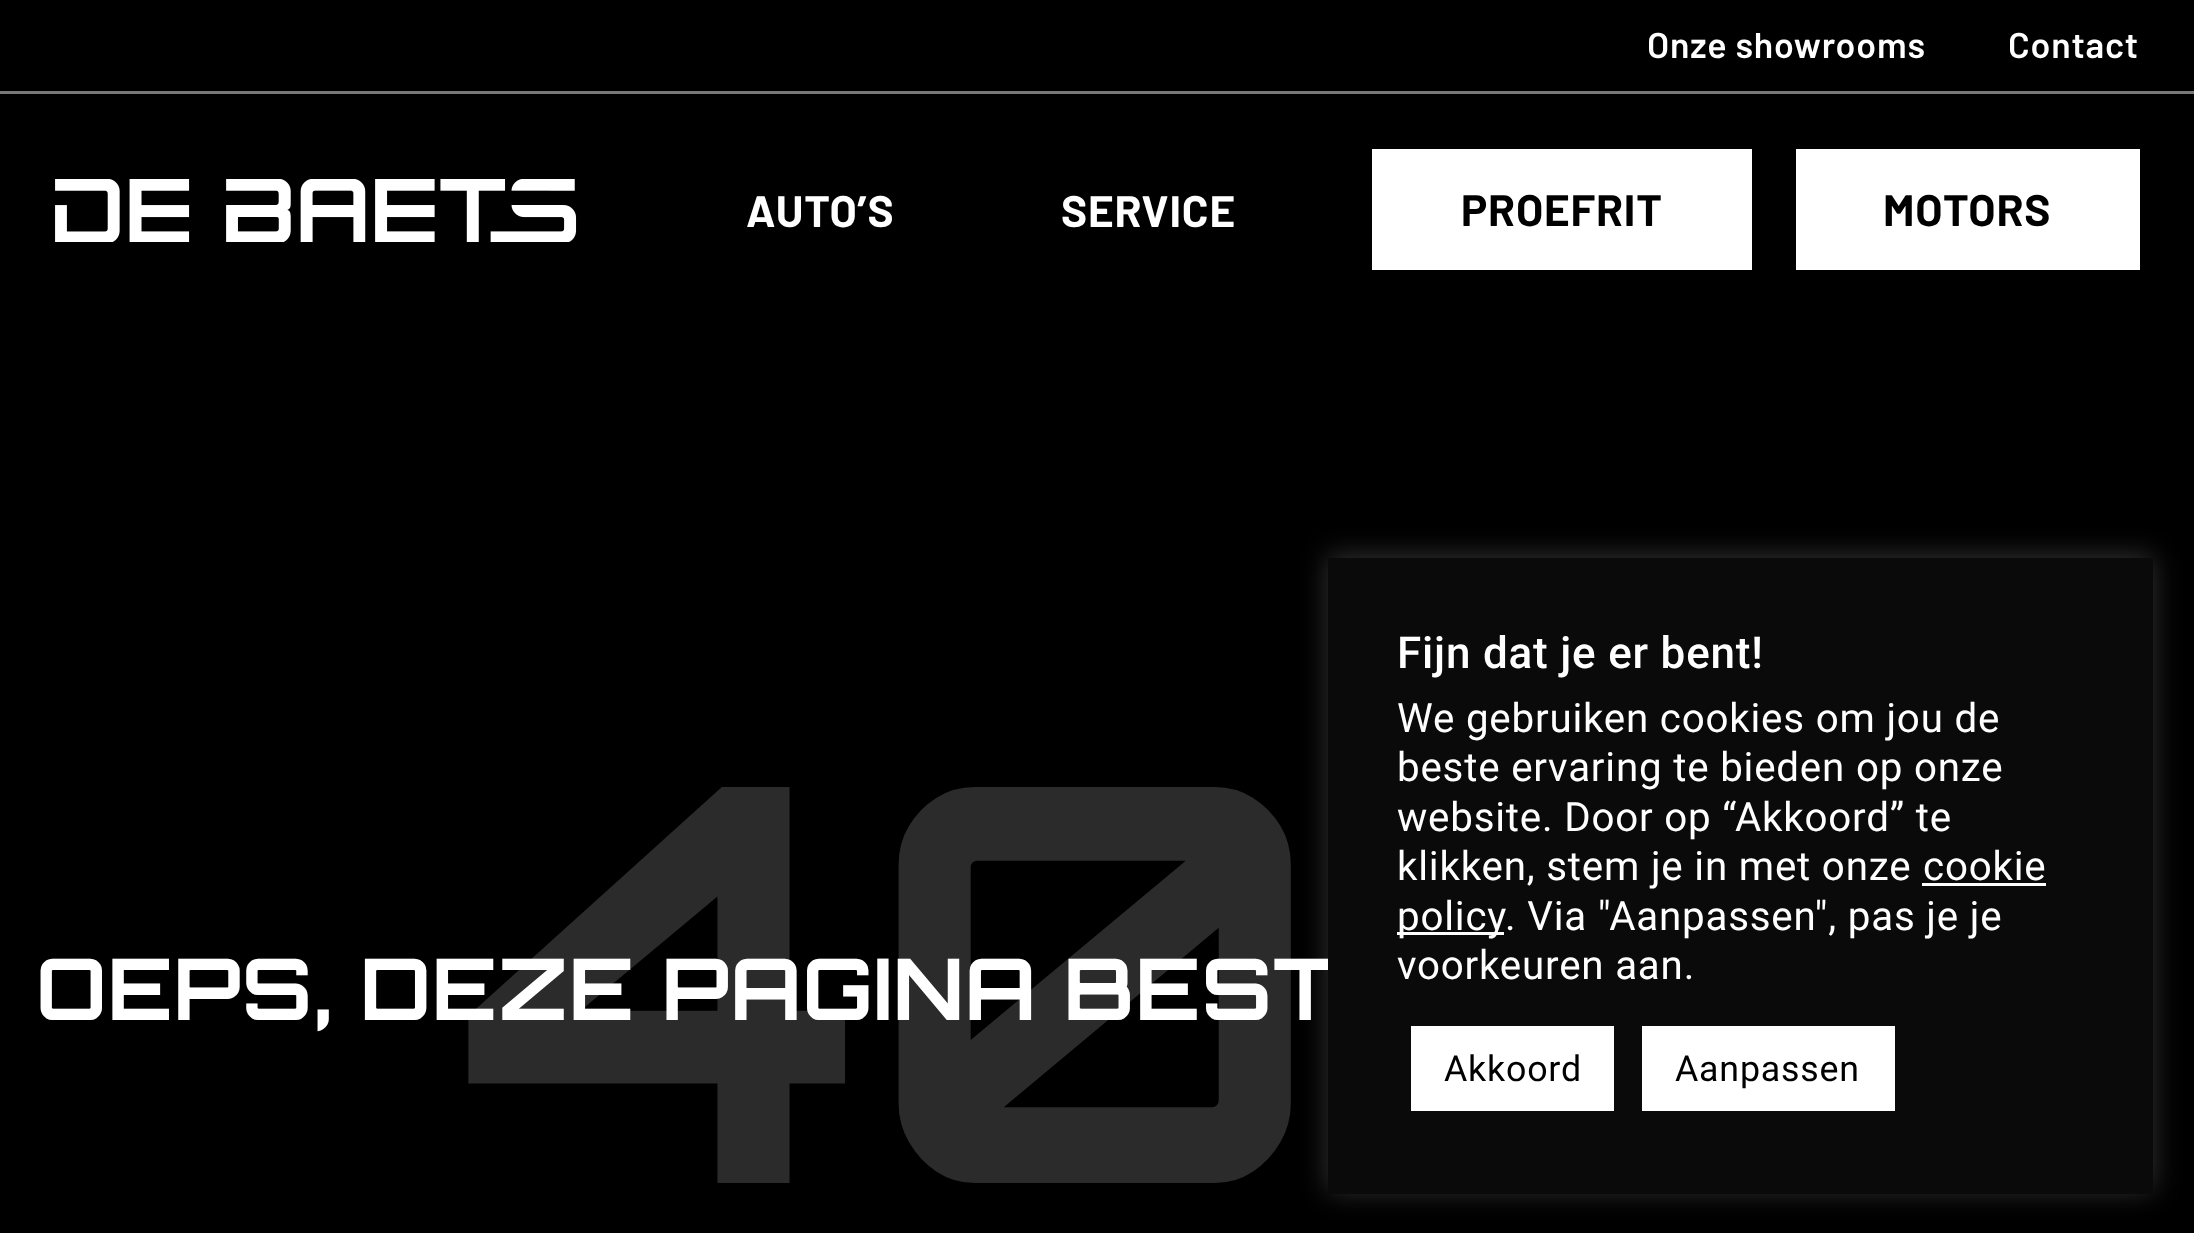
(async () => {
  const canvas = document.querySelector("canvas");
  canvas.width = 2194;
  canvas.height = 1233;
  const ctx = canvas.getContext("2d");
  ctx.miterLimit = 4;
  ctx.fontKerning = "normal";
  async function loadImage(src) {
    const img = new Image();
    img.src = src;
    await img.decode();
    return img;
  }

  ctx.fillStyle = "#000000";
  ctx.fillRect(0, 0, 2194, 1233);
  ctx.fillStyle = "#787878";
  ctx.fillRect(0, 91, 2194, 3);
  ctx.drawImage(await loadImage("img/1.png"), 55, 179, 522, 63);
  ctx.fillStyle = "#ffffff";
  ctx.fillRect(1372, 149, 380, 121);
  ctx.fillRect(1796, 149, 344, 121);
  ctx.fillStyle = "rgba(172, 171, 171, 0.3)";
  ctx.filter = "blur(14px)";
  ctx.beginPath();
  ctx.rect(1328, 556, 825, 635);
  ctx.fill();
  ctx.filter = "none";
  ctx.letterSpacing = "0.8px";
  ctx.font = "600 35.75px Barlow";
  ctx.fillStyle = "#ffffff";
  ctx.fillText("Onze showrooms", 1647, 58);
  ctx.fillText("Contact", 2008, 58);
  ctx.font = "bold 44px Barlow";
  ctx.fillText("AUTO’S", 746, 227);
  ctx.fillText("SERVICE", 1061, 227);
  ctx.fillStyle = "#000000";
  ctx.fillText("PROEFRIT", 1461, 226);
  ctx.fillText("MOTORS", 1883, 226);
  ctx.font = "bold 550px Orbitron";
  ctx.fillStyle = "#2b2b2b";
  ctx.fillText("40", 465, 1183);
  ctx.font = "bold 85.25px Orbitron";
  ctx.fillStyle = "#ffffff";
  ctx.fillText("OEPS, DEZE PAGINA BEST", 36, 1020);
  ctx.fillStyle = "#0a0a0a";
  ctx.fillRect(1328, 558, 825, 636);
  ctx.font = "500 44px Roboto";
  ctx.fillStyle = "#ffffff";
  ctx.fillText("Fijn dat je er bent!", 1397, 668);
  ctx.font = "40.3px Roboto";
  for (const [text, x, y] of [
    ["We gebruiken cookies om jou de", 1397, 732],
    ["beste ervaring te bieden op onze", 1397, 781],
    ["website. Door op “Akkoord” te", 1397, 831],
    ["klikken, stem je in met onze", 1397, 880],
    ["cookie", 1923, 880],
  ]) {
    ctx.fillText(text, x, y);
  }
  ctx.fillRect(1922, 883, 124, 3);
  ctx.fillRect(1397, 932, 107, 3);
  for (const [text, x, y] of [
    ["policy", 1397, 930],
    [". Via \"Aanpassen\", pas je je", 1505, 930],
    ["voorkeuren aan.", 1397, 979],
  ]) {
    ctx.fillText(text, x, y);
  }
  ctx.fillRect(1411, 1026, 203, 85);
  ctx.font = "35.75px Roboto";
  ctx.fillStyle = "#000000";
  ctx.fillText("Akkoord", 1444, 1081);
  ctx.fillStyle = "#ffffff";
  ctx.fillRect(1642, 1026, 253, 85);
  ctx.fillStyle = "#000000";
  ctx.fillText("Aanpassen", 1675, 1081);
})();
